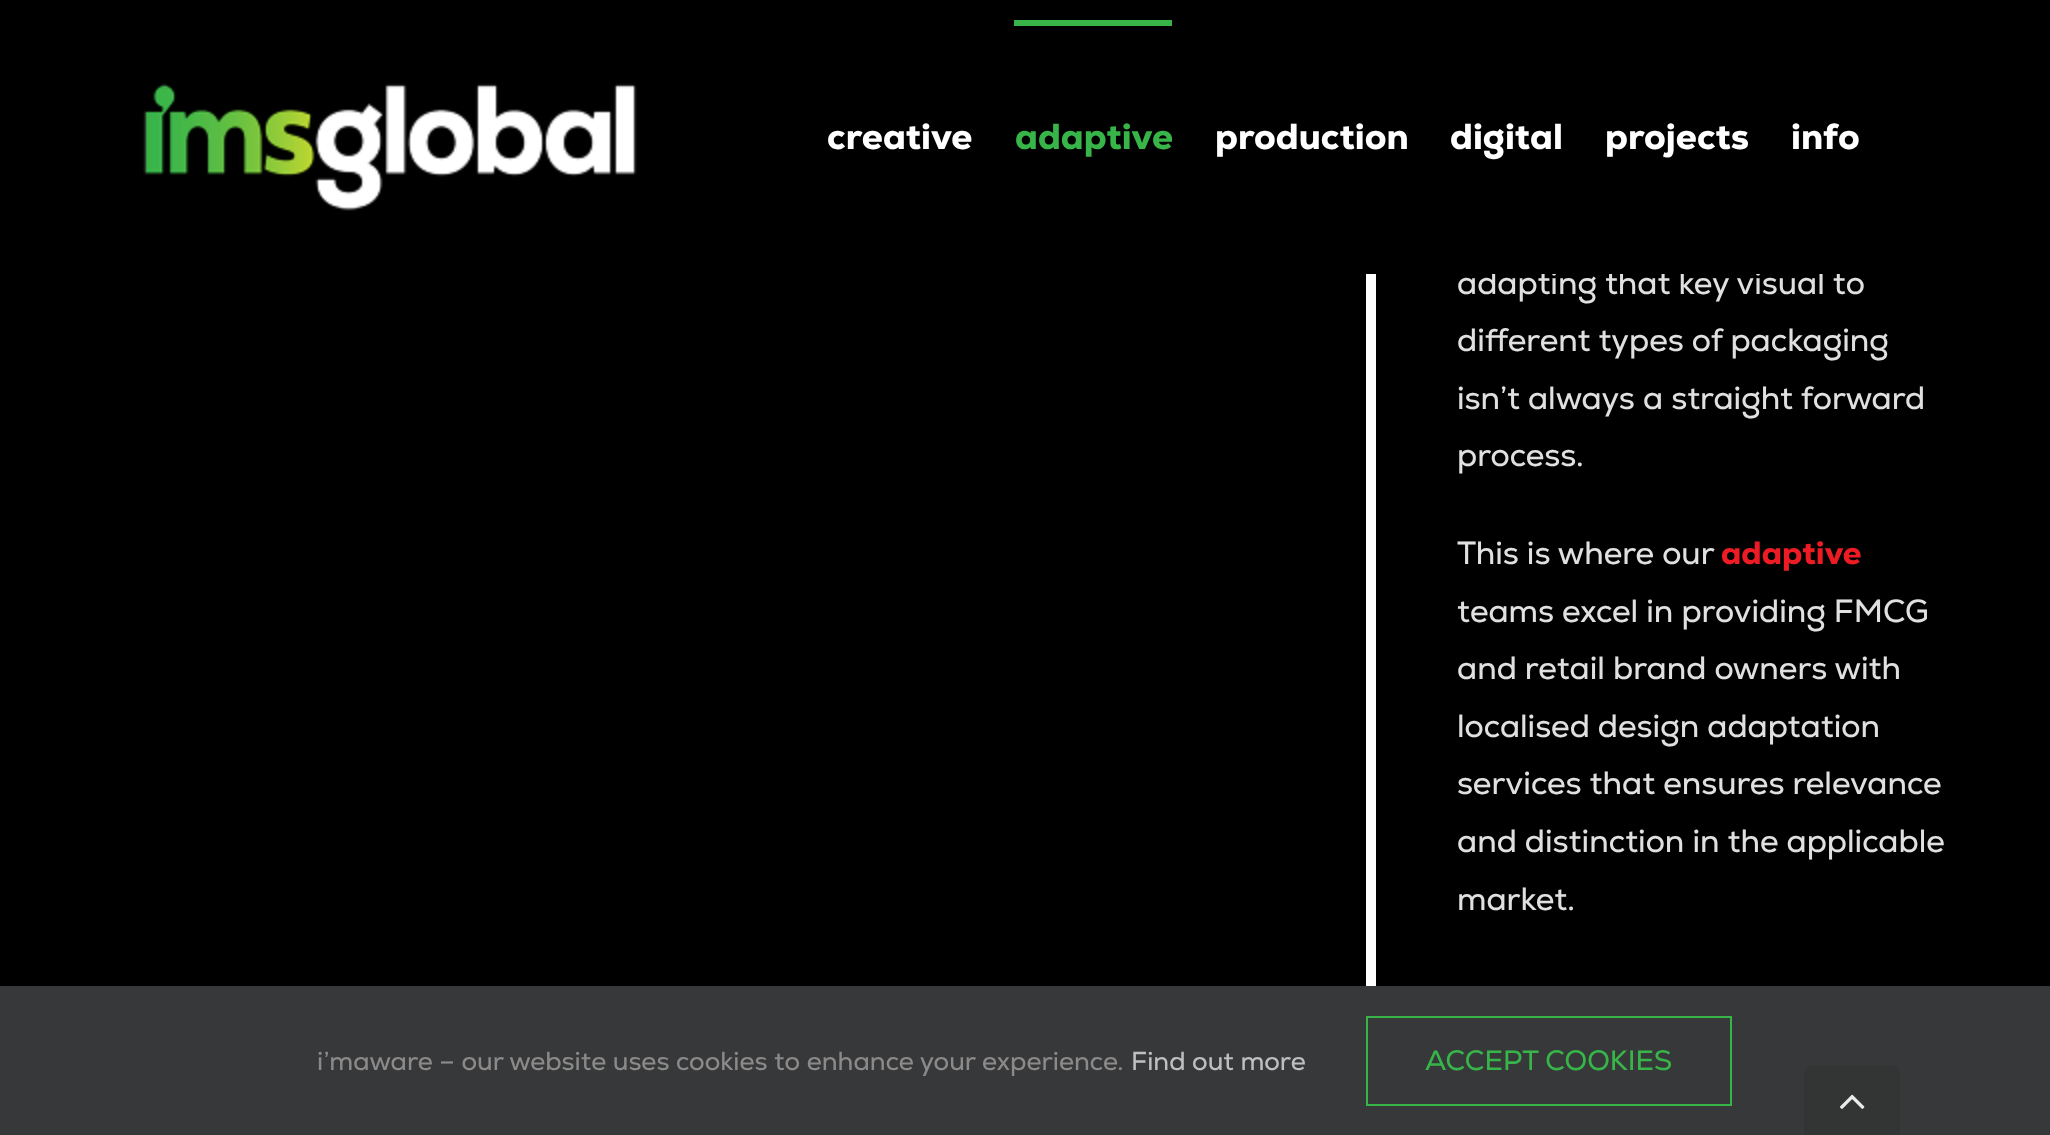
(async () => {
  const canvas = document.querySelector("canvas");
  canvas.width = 2050;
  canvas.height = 1135;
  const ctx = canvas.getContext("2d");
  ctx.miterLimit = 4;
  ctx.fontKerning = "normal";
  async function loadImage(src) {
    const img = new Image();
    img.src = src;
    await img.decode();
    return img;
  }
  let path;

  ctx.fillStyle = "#000000";
  ctx.fillRect(0, 0, 2050, 1135);
  ctx.drawImage(await loadImage("img/1.png"), 143, 83, 494, 128);
  for (const [x, y, w, h, color] of [
    [1014, 20, 158, 6, "#38b549"],
    [1366, 274, 10, 712, "#ffffff"],
    [0, 986, 2050, 149, "#363839"],
  ]) {
    ctx.fillStyle = color;
    ctx.fillRect(x, y, w, h);
  }
  ctx.strokeStyle = "#38b549";
  ctx.lineWidth = 2;
  ctx.strokeRect(1367, 1017, 364, 88);
  ctx.fillStyle = "#333434";
  path = new Path2D("M1812 1066H1892C1896.5 1066 1900 1069.5 1900 1074V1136H1804V1074C1804 1069.5 1807.5 1066 1812 1066Z");
  ctx.fill(path);
  ctx.drawImage(await loadImage("img/2.png"), 1840, 1094, 25, 15);
  ctx.font = "900 36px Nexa";
  ctx.fillStyle = "#ffffff";
  ctx.fillText("creative", 827, 149);
  ctx.fillStyle = "#38b549";
  ctx.fillText("adaptive", 1015, 149);
  ctx.fillStyle = "#ffffff";
  for (const [text, x, y] of [
    ["production", 1215, 149],
    ["digital", 1450, 149],
    ["projects", 1605, 149],
    ["info", 1791, 149],
  ]) {
    ctx.fillText(text, x, y);
  }
  ctx.font = "32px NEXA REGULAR";
  ctx.fillStyle = "#e0e0e0";
  ctx.fillText("adapting that key visual to", 1457, 294);
  ctx.fillStyle = "#000000";
  ctx.fillRect(1491, 271, 349, 3);
  ctx.fillStyle = "#e0e0e0";
  for (const [text, x, y] of [
    ["different types of packaging", 1457, 351],
    ["isn’t always a straight forward", 1457, 409],
    ["process.", 1457, 466],
    ["This is where our", 1457, 564],
  ]) {
    ctx.fillText(text, x, y);
  }
  ctx.font = "900 32px Nexa";
  ctx.fillStyle = "#ed1c24";
  ctx.fillText("adaptive", 1721, 564);
  ctx.font = "32px NEXA REGULAR";
  ctx.fillStyle = "#e0e0e0";
  for (const [text, x, y] of [
    ["teams excel in providing FMCG", 1457, 622],
    ["and retail brand owners with", 1457, 679],
    ["localised design adaptation", 1457, 737],
    ["services that ensures relevance", 1457, 794],
    ["and distinction in the applicable", 1457, 852],
    ["market.", 1457, 910],
  ]) {
    ctx.fillText(text, x, y);
  }
  ctx.font = "26px NEXA REGULAR";
  ctx.fillStyle = "#8c8989";
  ctx.fillText("i’maware – our website uses cookies to enhance your experience.", 317, 1070);
  ctx.fillStyle = "#bfbfbf";
  ctx.fillText("Find out more", 1131, 1070);
  ctx.font = "28px NEXA REGULAR";
  ctx.fillStyle = "#38b549";
  ctx.fillText("ACCEPT COOKIES", 1425, 1070);
})();
